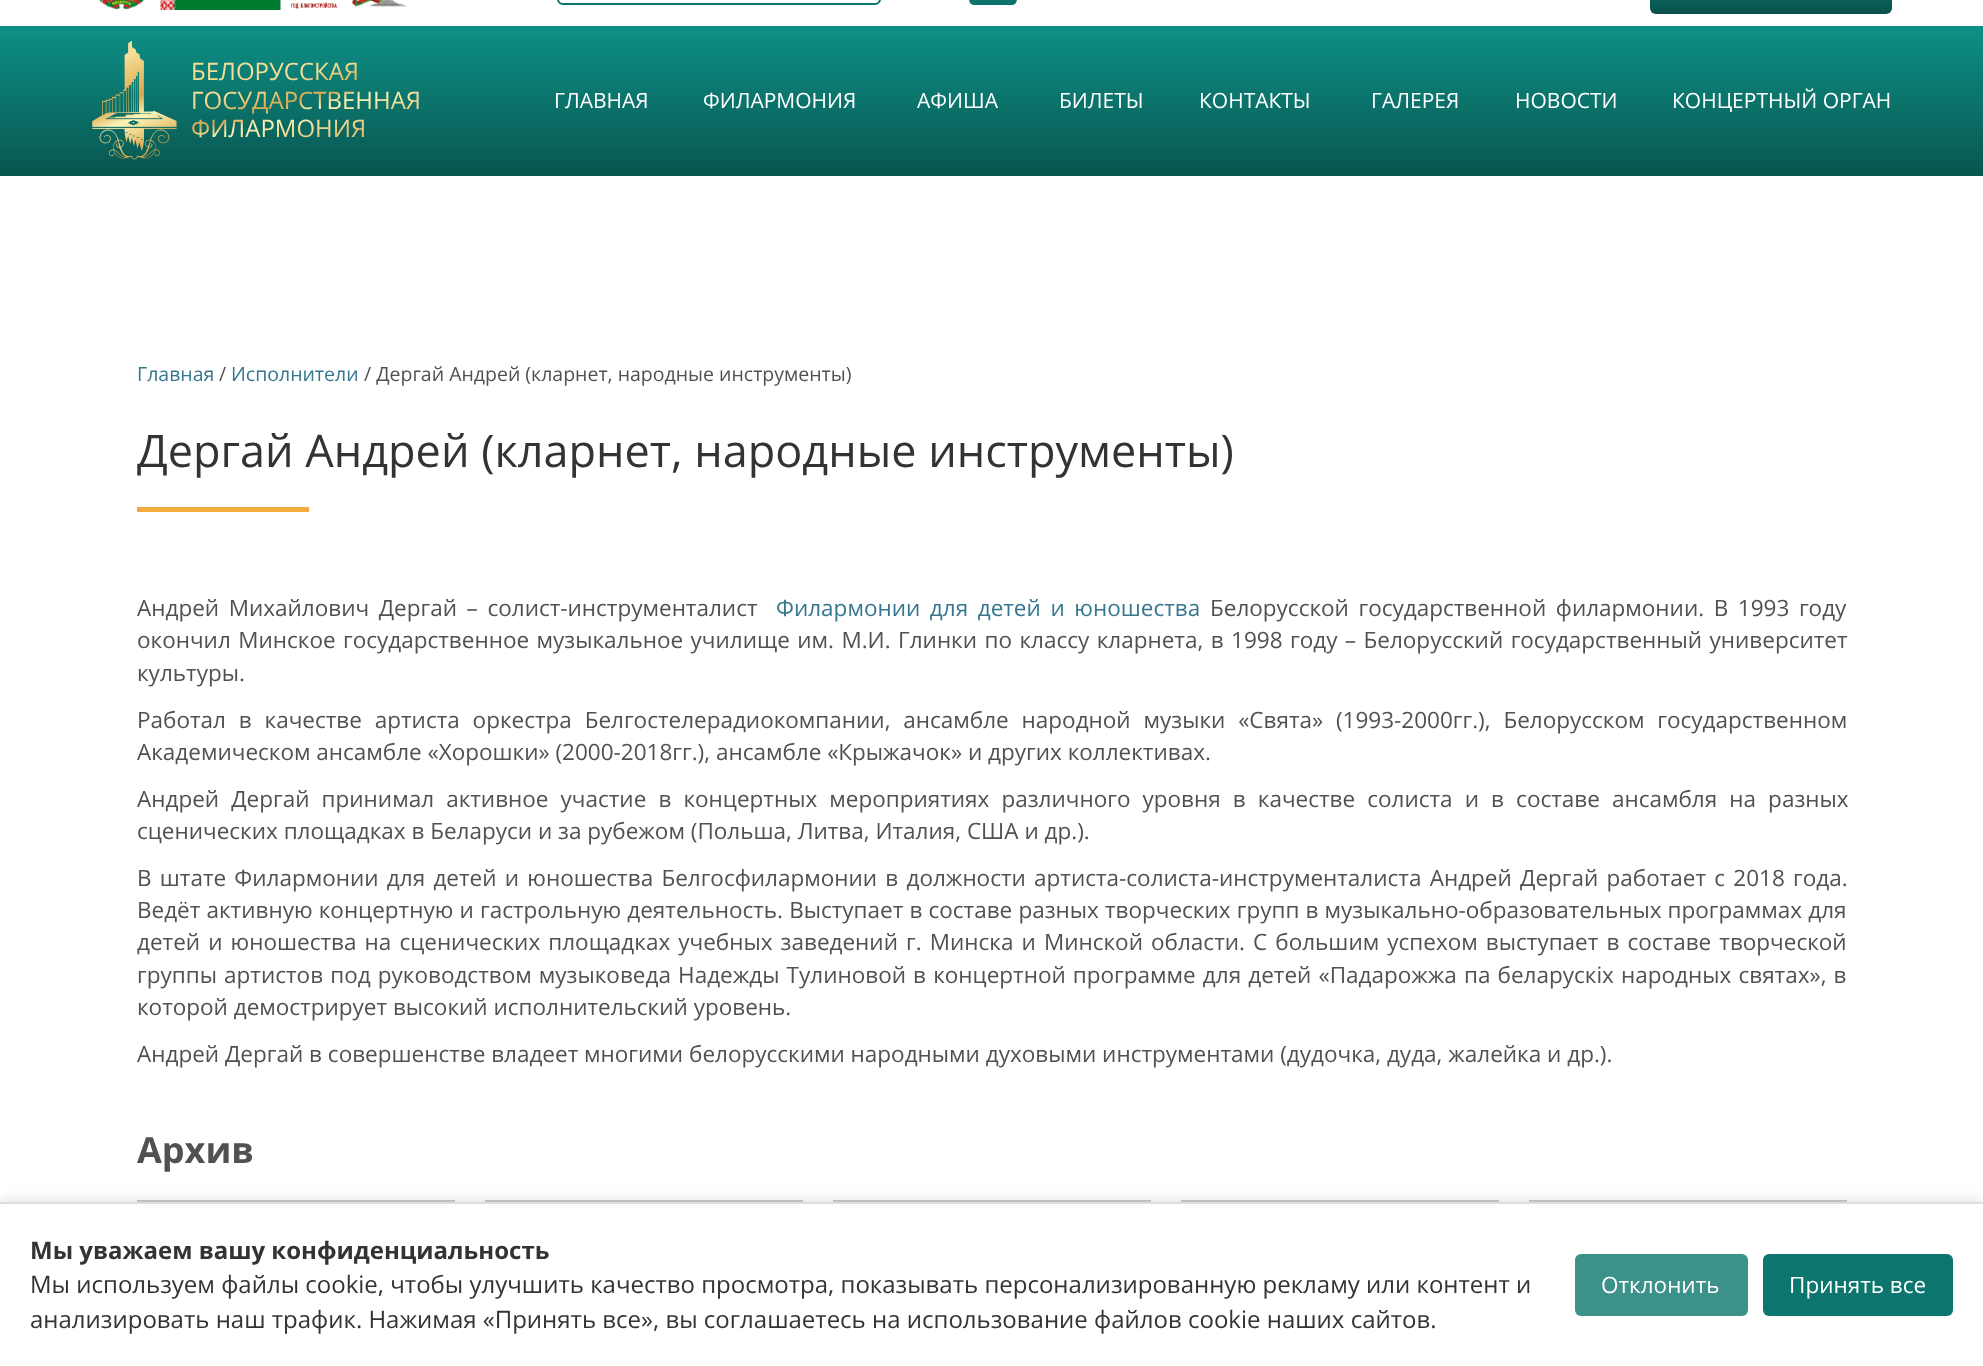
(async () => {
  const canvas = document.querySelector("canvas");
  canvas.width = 1983;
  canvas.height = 1366;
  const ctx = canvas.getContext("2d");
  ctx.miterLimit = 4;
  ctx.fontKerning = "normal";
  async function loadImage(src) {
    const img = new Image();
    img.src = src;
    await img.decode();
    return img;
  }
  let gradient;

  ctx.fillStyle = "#ffffff";
  ctx.fillRect(0, 0, 1983, 1366);
  ctx.drawImage(await loadImage("img/1.png"), 99, 0, 45, 10);
  ctx.drawImage(await loadImage("img/2.png"), 160, 0, 121, 10);
  ctx.drawImage(await loadImage("img/3.png"), 291, 0, 46, 9);
  ctx.drawImage(await loadImage("img/4.png"), 352, 0, 55, 7);
  ctx.beginPath();
  ctx.roundRect(558, -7, 322, 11, 5);
  ctx.strokeStyle = "#0b746c";
  ctx.lineWidth = 2;
  ctx.stroke();
  ctx.fillStyle = "#0b746c";
  ctx.beginPath();
  ctx.roundRect(969, -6, 48, 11, 6);
  ctx.fill();
  gradient = ctx.createLinearGradient(1771, -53, 1771, 14);
  gradient.addColorStop(0, "#0e988d");
  gradient.addColorStop(1, "#08504b");
  ctx.fillStyle = gradient;
  ctx.beginPath();
  ctx.roundRect(1650, -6, 242, 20, 6);
  ctx.fill();
  gradient = ctx.createLinearGradient(992, 25, 992, 176);
  gradient.addColorStop(0, "#0e9187");
  gradient.addColorStop(1, "#085650");
  ctx.fillStyle = gradient;
  ctx.fillRect(0, 26, 1983, 150);
  ctx.drawImage(await loadImage("img/5.png"), 92, 41, 85, 119);
  ctx.fillStyle = "#f2ac3d";
  ctx.fillRect(137, 507, 172, 5);
  ctx.strokeStyle = "#cccccc";
  ctx.lineWidth = 3;
  ctx.strokeRect(138.5, 1201.5, 315, 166);
  ctx.strokeRect(486.5, 1201.5, 315, 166);
  ctx.strokeRect(834.5, 1201.5, 315, 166);
  ctx.strokeRect(1182.5, 1201.5, 315, 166);
  ctx.strokeRect(1530.5, 1201.5, 315, 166);
  ctx.fillStyle = "rgba(0, 0, 0, 0.1)";
  ctx.filter = "blur(6px)";
  ctx.beginPath();
  ctx.rect(0, 1199, 1983, 165);
  ctx.fill();
  ctx.filter = "none";
  ctx.fillStyle = "#ffffff";
  ctx.fillRect(0, 1204, 1983, 162);
  ctx.fillStyle = "#dddddd";
  ctx.fillRect(0, 1202, 1983, 2);
  ctx.fillStyle = "#3d918b";
  ctx.beginPath();
  ctx.roundRect(1575, 1254, 173, 62, 6);
  ctx.fill();
  ctx.fillStyle = "#0c766e";
  ctx.beginPath();
  ctx.roundRect(1763, 1254, 190, 62, 6);
  ctx.fill();
  ctx.font = "24px Open Sans";
  gradient = ctx.createLinearGradient(288, 30, 327, 171);
  gradient.addColorStop(0.32, "#f4de96");
  gradient.addColorStop(0.48, "#dba74b");
  gradient.addColorStop(0.57, "#faf4b9");
  gradient.addColorStop(0.93, "#dba74b");
  ctx.fillStyle = gradient;
  for (const [text, x, y] of [
    ["БЕЛОРУССКАЯ", 191, 80],
    ["ГОСУДАРСТВЕННАЯ", 191, 109],
    ["ФИЛАРМОНИЯ", 191, 137],
  ]) {
    ctx.fillText(text, x, y);
  }
  ctx.font = "21px Open Sans";
  ctx.fillStyle = "#ffffff";
  for (const [text, x, y] of [
    ["ГЛАВНАЯ", 554, 108],
    ["ФИЛАРМОНИЯ", 703, 108],
    ["АФИША", 917, 108],
    ["БИЛЕТЫ", 1059, 108],
    ["КОНТАКТЫ", 1199, 108],
    ["ГАЛЕРЕЯ", 1371, 108],
    ["НОВОСТИ", 1515, 108],
    ["КОНЦЕРТНЫЙ ОРГАН", 1672, 108],
  ]) {
    ctx.fillText(text, x, y);
  }
  ctx.font = "19.5px Open Sans";
  ctx.fillStyle = "#36778f";
  ctx.fillText("Главная", 137, 381);
  ctx.fillStyle = "#515151";
  ctx.fillText("/", 219, 381);
  ctx.fillStyle = "#36778f";
  ctx.fillText("Исполнители", 231, 381);
  ctx.fillStyle = "#515151";
  ctx.fillText("/ Дергай Андрей (кларнет, народные инструменты)", 364, 381);
  ctx.font = "45px Open Sans";
  ctx.fillStyle = "#333333";
  ctx.fillText("Дергай Андрей (кларнет, народные инструменты)", 137, 467);
  ctx.wordSpacing = "3.75px";
  ctx.font = "22.5px Open Sans";
  ctx.fillStyle = "#515151";
  ctx.fillText("Андрей Михайлович Дергай – солист-инструменталист", 137, 616);
  ctx.fillStyle = "#36778f";
  ctx.fillText("Филармонии для детей и юношества", 776, 616);
  ctx.fillStyle = "#515151";
  ctx.fillText("Белорусской государственной филармонии. В 1993 году", 1210, 616);
  ctx.wordSpacing = "1.6px";
  ctx.fillText("окончил Минское государственное музыкальное училище им. М.И. Глинки по классу кларнета, в 1998 году – Белорусский государственный университет", 137, 648);
  ctx.wordSpacing = "0px";
  ctx.fillText("культуры.", 137, 681);
  ctx.wordSpacing = "7px";
  ctx.fillText("Работал в качестве артиста оркестра Белгостелерадиокомпании, ансамбле народной музыки «Свята» (1993-2000гг.), Белорусском государственном", 137, 728);
  ctx.wordSpacing = "0px";
  ctx.fillText("Академическом ансамбле «Хорошки» (2000-2018гг.), ансамбле «Крыжачок» и других коллективах.", 137, 760);
  ctx.wordSpacing = "6.25px";
  ctx.fillText("Андрей Дергай принимал активное участие в концертных мероприятиях различного уровня в качестве солиста и в составе ансамбля на разных", 137, 807);
  ctx.wordSpacing = "0px";
  ctx.fillText("сценических площадках в Беларуси и за рубежом (Польша, Литва, Италия, США и др.).", 137, 839);
  ctx.wordSpacing = "2.4px";
  ctx.fillText("В штате Филармонии для детей и юношества Белгосфилармонии в должности артиста-солиста-инструменталиста Андрей Дергай работает с 2018 года.", 137, 886);
  ctx.wordSpacing = "0.3px";
  ctx.fillText("Ведёт активную концертную и гастрольную деятельность. Выступает в составе разных творческих групп в музыкально-образовательных программах для", 137, 918);
  ctx.wordSpacing = "2.25px";
  ctx.fillText("детей и юношества на сценических площадках учебных заведений г. Минска и Минской области. С большим успехом выступает в составе творческой", 137, 950);
  ctx.wordSpacing = "1.3px";
  ctx.fillText("группы артистов под руководством музыковеда Надежды Тулиновой в концертной программе для детей «Падарожжа па беларускіх народных святах», в", 137, 983);
  ctx.wordSpacing = "0px";
  ctx.fillText("которой демострирует высокий исполнительский уровень.", 137, 1015);
  ctx.fillText("Андрей Дергай в совершенстве владеет многими белорусскими народными духовыми инструментами (дудочка, дуда, жалейка и др.).", 137, 1062);
  ctx.font = "bold 36px Open Sans";
  ctx.fillText("Архив", 137, 1163);
  ctx.font = "bold 24px Open Sans";
  ctx.fillStyle = "#333333";
  ctx.fillText("Мы уважаем вашу конфиденциальность", 30, 1259);
  ctx.font = "24px Open Sans";
  ctx.fillText("Мы используем файлы cookie, чтобы улучшить качество просмотра, показывать персонализированную рекламу или контент и", 30, 1293);
  ctx.fillText("анализировать наш трафик. Нажимая «Принять все», вы соглашаетесь на использование файлов cookie наших сайтов.", 30, 1328);
  ctx.font = "22.5px Open Sans";
  ctx.fillStyle = "#ffffff";
  ctx.fillText("Отклонить", 1601, 1293);
  ctx.fillText("Принять все", 1789, 1293);
})();
